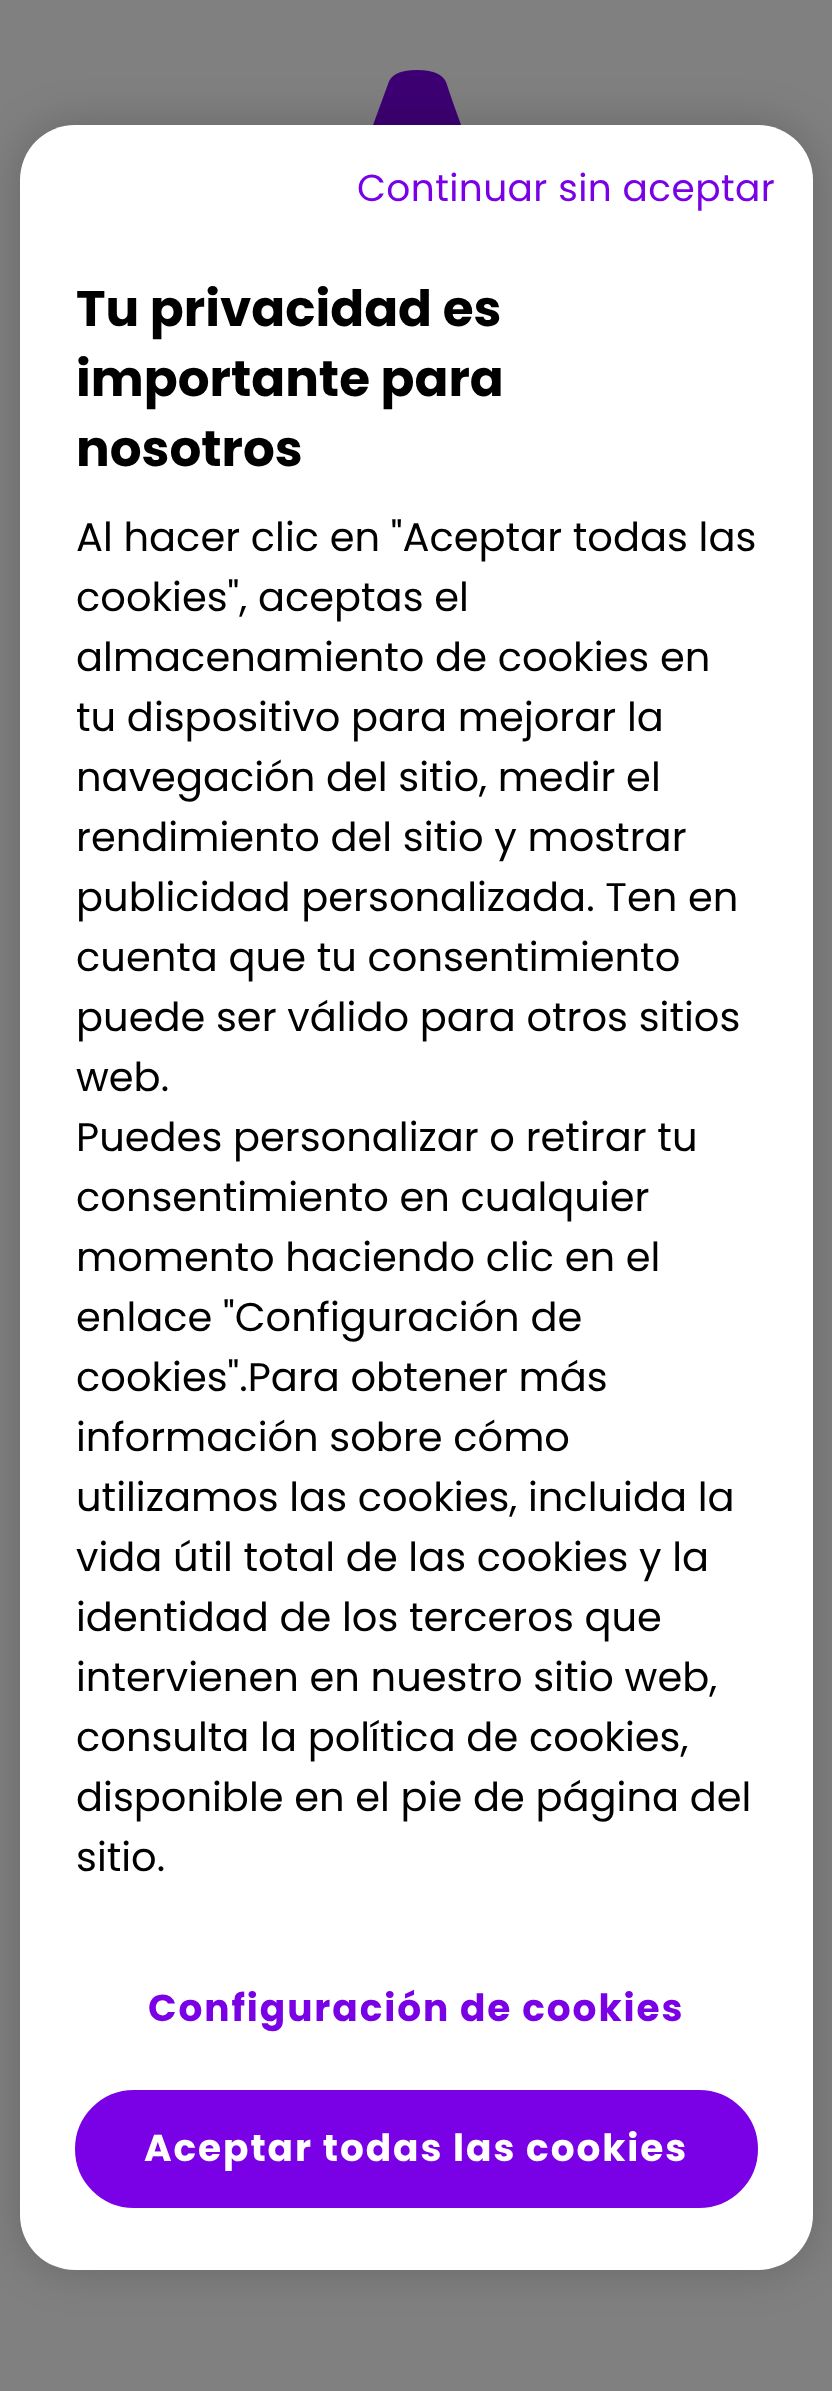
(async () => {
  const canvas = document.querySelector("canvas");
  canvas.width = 832;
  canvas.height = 2391;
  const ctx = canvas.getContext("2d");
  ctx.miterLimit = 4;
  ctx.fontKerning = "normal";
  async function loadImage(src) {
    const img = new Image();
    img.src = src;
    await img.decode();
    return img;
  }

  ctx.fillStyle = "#808080";
  ctx.fillRect(0, 0, 832, 2391);
  ctx.drawImage(await loadImage("img/1.png"), 373, 70, 88, 55);
  ctx.fillStyle = "rgba(0, 0, 0, 0.2)";
  ctx.filter = "blur(22.5px)";
  ctx.beginPath();
  ctx.roundRect(20, 125, 793, 2145, 55);
  ctx.fill();
  ctx.filter = "none";
  ctx.fillStyle = "#ffffff";
  ctx.beginPath();
  ctx.roundRect(20, 125, 793, 2145, 55);
  ctx.fill();
  ctx.fillStyle = "#7a00e6";
  ctx.beginPath();
  ctx.roundRect(76.5, 2091.5, 680, 115, 57.5);
  ctx.fill();
  ctx.strokeStyle = "#7a00e6";
  ctx.lineWidth = 3;
  ctx.stroke();
  ctx.letterSpacing = "0.4px";
  ctx.font = "37.5px Poppins";
  ctx.fillText("Continuar sin aceptar", 357, 201);
  ctx.letterSpacing = "0px";
  ctx.font = "bold 50px Poppins";
  ctx.fillStyle = "#000000";
  for (const [text, x, y] of [
    ["Tu privacidad es", 76, 326],
    ["importante para", 76, 396],
    ["nosotros", 76, 466],
  ]) {
    ctx.fillText(text, x, y);
  }
  ctx.font = "40px Poppins";
  for (const [text, x, y] of [
    ["Al hacer clic en \"Aceptar todas las", 76, 551],
    ["cookies\", aceptas el", 76, 611],
    ["almacenamiento de cookies en", 76, 671],
    ["tu dispositivo para mejorar la", 76, 731],
    ["navegación del sitio, medir el", 76, 791],
    ["rendimiento del sitio y mostrar", 76, 851],
    ["publicidad personalizada. Ten en", 76, 911],
    ["cuenta que tu consentimiento", 76, 971],
    ["puede ser válido para otros sitios", 76, 1031],
    ["web.", 76, 1091],
    ["Puedes personalizar o retirar tu", 76, 1151],
    ["consentimiento en cualquier", 76, 1211],
    ["momento haciendo clic en el", 76, 1271],
    ["enlace \"Configuración de", 76, 1331],
    ["cookies\".Para obtener más", 76, 1391],
    ["información sobre cómo", 76, 1451],
    ["utilizamos las cookies, incluida la", 76, 1511],
    ["vida útil total de las cookies y la", 76, 1571],
    ["identidad de los terceros que", 76, 1631],
    ["intervienen en nuestro sitio web,", 76, 1691],
    ["consulta la política de cookies,", 76, 1751],
    ["disponible en el pie de página del", 76, 1811],
    ["sitio.", 76, 1871],
  ]) {
    ctx.fillText(text, x, y);
  }
  ctx.letterSpacing = "1.9px";
  ctx.font = "bold 37.5px Poppins";
  ctx.fillStyle = "#7a00e6";
  ctx.fillText("Configuración de cookies", 148, 2021);
  ctx.fillStyle = "#ffffff";
  ctx.fillText("Aceptar todas las cookies", 144, 2161);
})();
